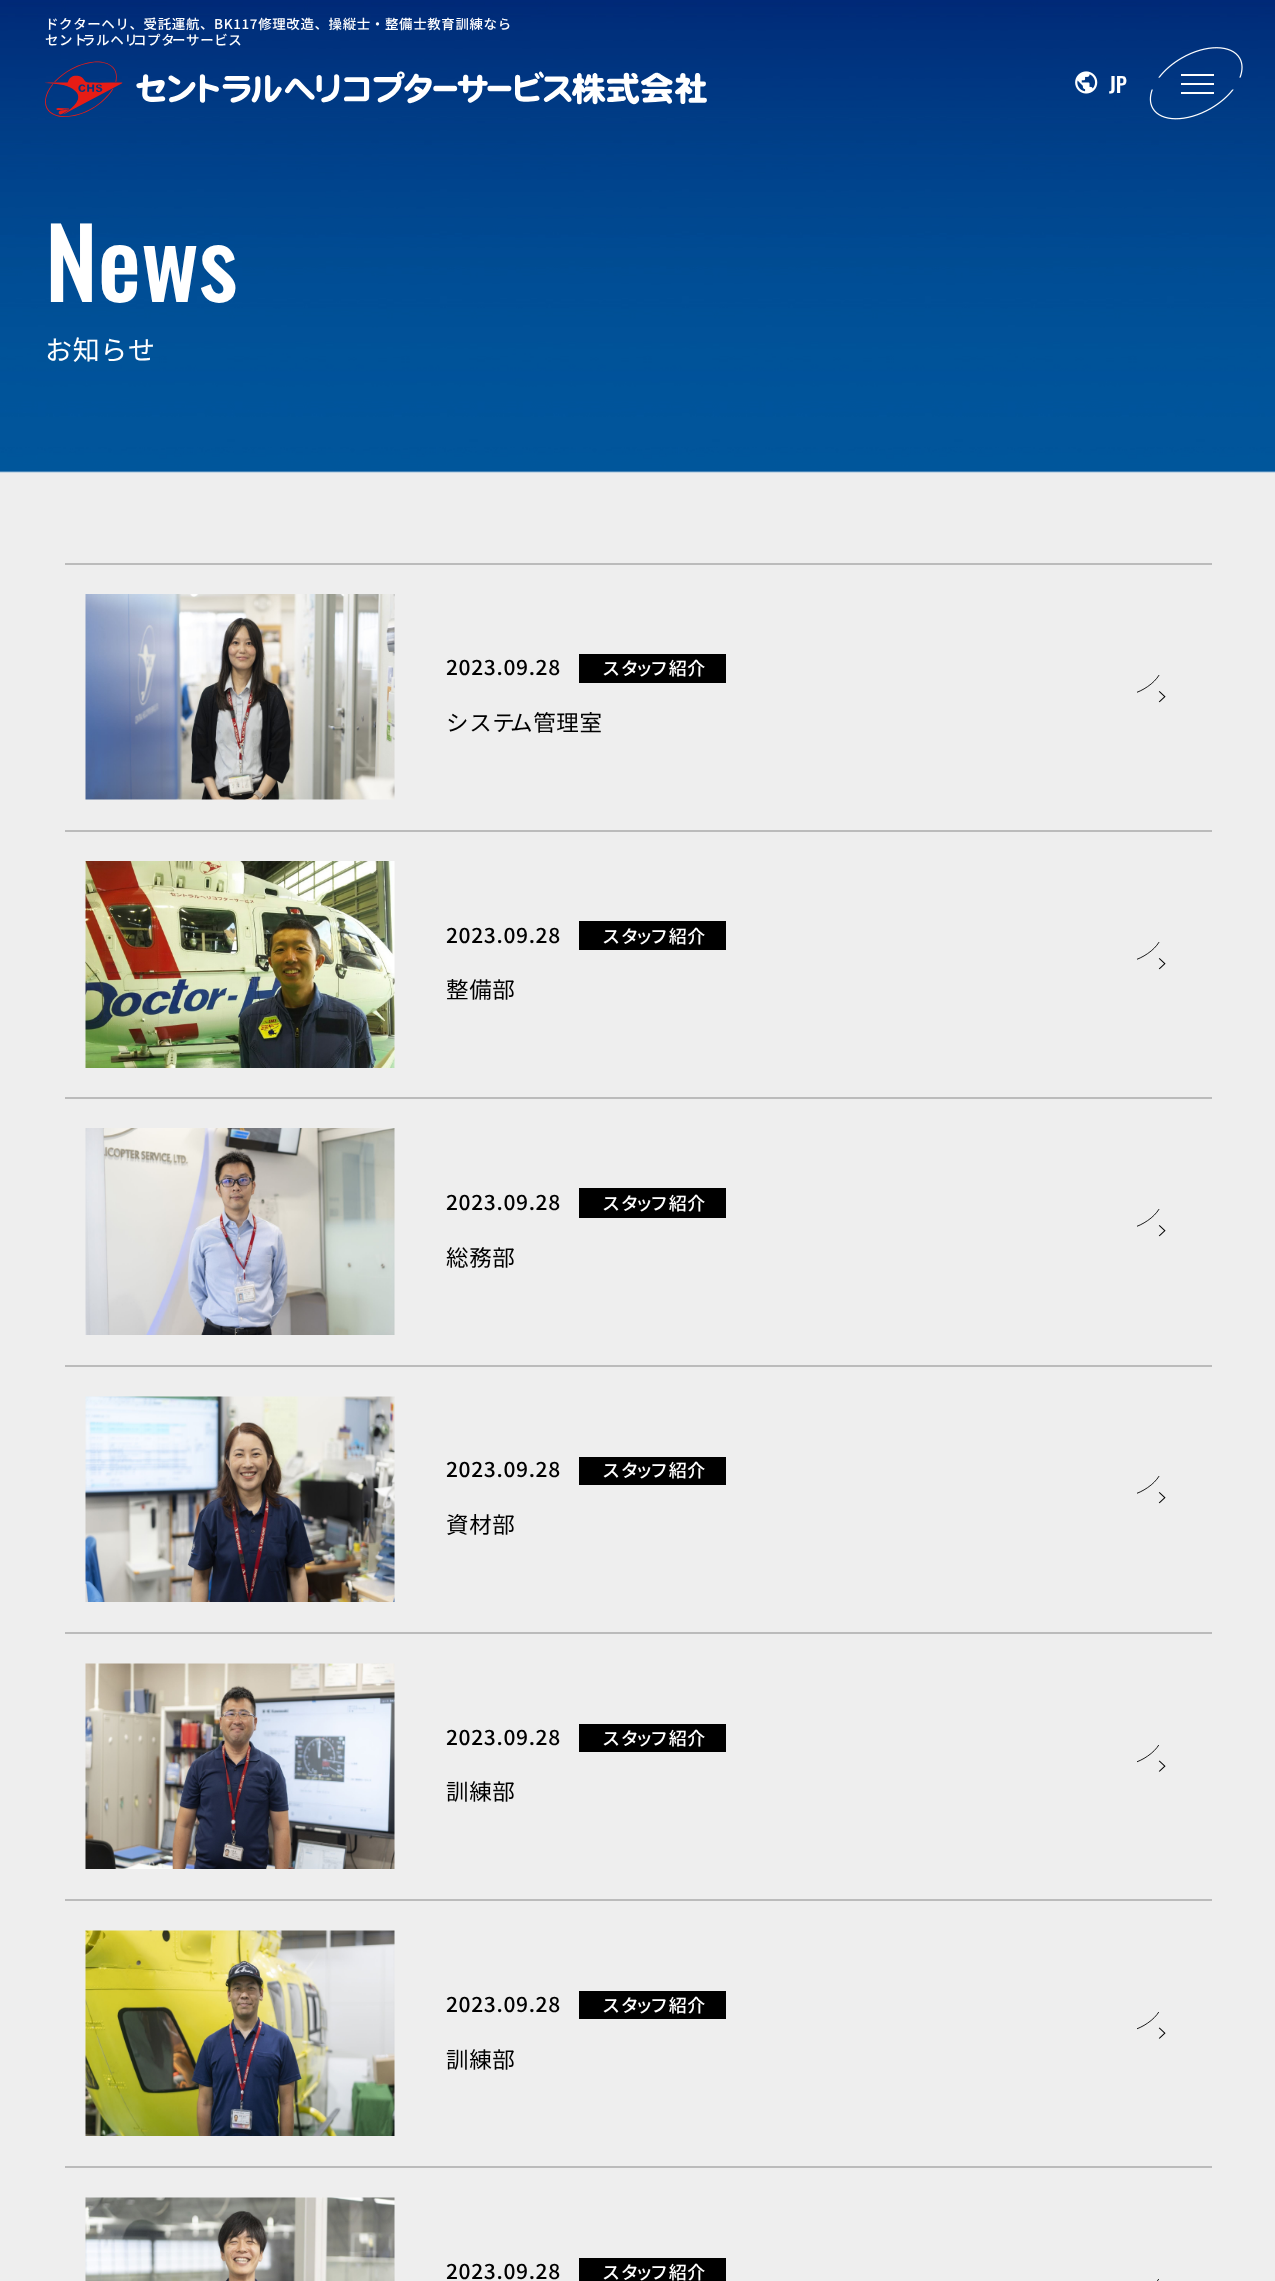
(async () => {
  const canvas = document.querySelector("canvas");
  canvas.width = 1275;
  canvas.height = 2281;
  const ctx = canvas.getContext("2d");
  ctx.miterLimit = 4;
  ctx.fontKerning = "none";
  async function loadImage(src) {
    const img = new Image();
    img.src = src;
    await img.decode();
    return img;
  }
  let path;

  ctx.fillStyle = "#eeeeee";
  ctx.fillRect(0, 0, 1275, 2281);
  ctx.drawImage(await loadImage("img/4.png"), 0, 0, 1275, 473);
  ctx.drawImage(await loadImage("img/1.png"), 45, 61, 662, 56);
  ctx.drawImage(await loadImage("img/2.png"), 1075, 71, 23, 23);
  ctx.drawImage(await loadImage("img/3.png"), 1149, 47, 94, 73);
  for (const [x, y, w, h, color] of [
    [1181, 74, 33, 2, "#ffffff"],
    [1181, 83, 33, 2, "#ffffff"],
    [1181, 92, 33, 2, "#ffffff"],
    [65, 563, 1147, 2, "#bbbbbb"],
    [65, 830, 1147, 2, "#bbbbbb"],
  ]) {
    ctx.fillStyle = color;
    ctx.fillRect(x, y, w, h);
  }
  ctx.drawImage(await loadImage("img/5.png"), 85, 594, 310, 206);
  ctx.fillStyle = "#000000";
  ctx.fillRect(579, 654, 147, 29);
  ctx.save();
  ctx.beginPath();
  ctx.rect(1137, 675, 52, 45);
  ctx.clip();
  path = new Path2D("M1160 661C1171 679.5 1122.5 707.5 1112 689C1101 670.5 1149.5 642.5 1160 661Z");
  ctx.strokeStyle = "#000000";
  ctx.lineWidth = 0.9;
  ctx.stroke(path);
  ctx.restore();
  ctx.drawImage(await loadImage("img/6.png"), 1158, 691, 8, 12);
  ctx.fillStyle = "#bbbbbb";
  ctx.fillRect(65, 1097, 1147, 2);
  ctx.drawImage(await loadImage("img/7.png"), 85, 861, 310, 207);
  ctx.fillStyle = "#000000";
  ctx.fillRect(579, 921, 147, 29);
  ctx.save();
  ctx.beginPath();
  ctx.rect(1137, 942, 52, 45);
  ctx.clip();
  path = new Path2D("M1160 928C1171 946.5 1122.5 974.5 1112 956C1101 937.5 1149.5 909.5 1160 928Z");
  ctx.strokeStyle = "#000000";
  ctx.lineWidth = 0.9;
  ctx.stroke(path);
  ctx.restore();
  ctx.drawImage(await loadImage("img/6.png"), 1158, 958, 8, 12);
  ctx.fillStyle = "#bbbbbb";
  ctx.fillRect(65, 1365, 1147, 2);
  ctx.drawImage(await loadImage("img/8.png"), 85, 1128, 310, 207);
  ctx.fillStyle = "#000000";
  ctx.fillRect(579, 1188, 147, 30);
  ctx.save();
  ctx.beginPath();
  ctx.rect(1137, 1209, 52, 45);
  ctx.clip();
  path = new Path2D("M1160 1195C1171 1213.5 1122.5 1241.5 1112 1223C1101 1204.5 1149.5 1176.5 1160 1195Z");
  ctx.strokeStyle = "#000000";
  ctx.lineWidth = 0.9;
  ctx.stroke(path);
  ctx.restore();
  ctx.drawImage(await loadImage("img/6.png"), 1158, 1225, 8, 12);
  ctx.fillStyle = "#bbbbbb";
  ctx.fillRect(65, 1632, 1147, 2);
  ctx.drawImage(await loadImage("img/9.png"), 85, 1396, 310, 206);
  ctx.fillStyle = "#000000";
  ctx.fillRect(579, 1457, 147, 28);
  ctx.save();
  ctx.beginPath();
  ctx.rect(1137, 1476, 52, 45);
  ctx.clip();
  path = new Path2D("M1160 1462C1171 1480.5 1122.5 1508.5 1112 1490C1101 1471.5 1149.5 1443.5 1160 1462Z");
  ctx.strokeStyle = "#000000";
  ctx.lineWidth = 0.9;
  ctx.stroke(path);
  ctx.restore();
  ctx.drawImage(await loadImage("img/6.png"), 1158, 1492, 8, 12);
  ctx.fillStyle = "#bbbbbb";
  ctx.fillRect(65, 1899, 1147, 2);
  ctx.drawImage(await loadImage("img/10.png"), 85, 1663, 310, 206);
  ctx.fillStyle = "#000000";
  ctx.fillRect(579, 1724, 147, 28);
  ctx.save();
  ctx.beginPath();
  ctx.rect(1137, 1745, 52, 43);
  ctx.clip();
  path = new Path2D("M1160 1730.5C1171 1749 1122.5 1777 1112 1758.5C1101 1740 1149.5 1712 1160 1730.5Z");
  ctx.strokeStyle = "#000000";
  ctx.lineWidth = 0.9;
  ctx.stroke(path);
  ctx.restore();
  ctx.drawImage(await loadImage("img/11.png"), 1158, 1760, 8, 12);
  ctx.fillStyle = "#bbbbbb";
  ctx.fillRect(65, 2166, 1147, 2);
  ctx.drawImage(await loadImage("img/12.png"), 85, 1930, 310, 206);
  ctx.fillStyle = "#000000";
  ctx.fillRect(579, 1991, 147, 28);
  ctx.save();
  ctx.beginPath();
  ctx.rect(1137, 2012, 52, 44);
  ctx.clip();
  path = new Path2D("M1160 1997.5C1171 2016 1122.5 2044 1112 2025.5C1101 2007 1149.5 1979 1160 1997.5Z");
  ctx.strokeStyle = "#000000";
  ctx.lineWidth = 0.9;
  ctx.stroke(path);
  ctx.restore();
  ctx.drawImage(await loadImage("img/11.png"), 1158, 2027, 8, 12);
  ctx.drawImage(await loadImage("img/13.png"), 85, 2197, 310, 84);
  ctx.fillRect(579, 2258, 147, 23);
  ctx.save();
  ctx.beginPath();
  ctx.rect(1137, 2279, 52, 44);
  ctx.clip();
  path = new Path2D("M1160 2264.5C1171 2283 1122.5 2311 1112 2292.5C1101 2274 1149.5 2246 1160 2264.5Z");
  ctx.strokeStyle = "#000000";
  ctx.lineWidth = 0.9;
  ctx.stroke(path);
  ctx.restore();
  ctx.letterSpacing = "0.65px";
  ctx.font = "500 13.45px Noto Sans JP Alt";
  ctx.fillStyle = "#ffffff";
  ctx.fillText("ドクターヘリ、受託運航、BK117修理改造、操縦士・整備士教育訓練なら", 45, 29);
  ctx.font = "500 13.45px Noto Sans JP";
  ctx.fillText("セント", 45, 45);
  ctx.fillText("ラルヘリ", 82, 45);
  ctx.fillText("コプタ", 133, 45);
  ctx.fillText("ーサービス", 172, 45);
  ctx.letterSpacing = "0px";
  ctx.font = "500 21px Oswald";
  ctx.fillText("JP", 1109, 93);
  ctx.font = "500 97px Oswald";
  ctx.fillText("News", 45, 302);
  ctx.letterSpacing = "0.65px";
  ctx.font = "27px Noto Sans JP";
  ctx.fillText("お知らせ", 45, 360);
  ctx.font = "500 21px Noto Sans JP";
  ctx.fillStyle = "#000000";
  ctx.fillText("2023.09.28", 446, 675);
  ctx.font = "500 18px Noto Sans JP";
  ctx.fillStyle = "#ffffff";
  ctx.fillText("スタ", 602, 675);
  ctx.fillText("ッ", 635, 675);
  ctx.fillText("フ紹介", 650, 675);
  ctx.font = "22.5px Noto Sans JP";
  ctx.fillStyle = "#000000";
  ctx.fillText("システ", 446, 731);
  ctx.fillText("ム管理室", 510, 731);
  ctx.font = "500 21px Noto Sans JP";
  ctx.fillText("2023.09.28", 446, 943);
  ctx.font = "500 18px Noto Sans JP";
  ctx.fillStyle = "#ffffff";
  ctx.fillText("スタ", 602, 943);
  ctx.fillText("ッ", 635, 943);
  ctx.fillText("フ紹介", 650, 943);
  ctx.font = "22.5px Noto Sans JP";
  ctx.fillStyle = "#000000";
  ctx.fillText("整備部", 446, 998);
  ctx.font = "500 21px Noto Sans JP";
  ctx.fillText("2023.09.28", 446, 1210);
  ctx.font = "500 18px Noto Sans JP";
  ctx.fillStyle = "#ffffff";
  ctx.fillText("スタ", 602, 1210);
  ctx.fillText("ッ", 635, 1210);
  ctx.fillText("フ紹介", 650, 1210);
  ctx.font = "22.5px Noto Sans JP";
  ctx.fillStyle = "#000000";
  ctx.fillText("総務部", 446, 1266);
  ctx.font = "500 21px Noto Sans JP";
  ctx.fillText("2023.09.28", 446, 1477);
  ctx.font = "500 18px Noto Sans JP";
  ctx.fillStyle = "#ffffff";
  ctx.fillText("スタ", 602, 1477);
  ctx.fillText("ッ", 635, 1477);
  ctx.fillText("フ紹介", 650, 1477);
  ctx.font = "22.5px Noto Sans JP";
  ctx.fillStyle = "#000000";
  ctx.fillText("資材部", 446, 1533);
  ctx.font = "500 21px Noto Sans JP";
  ctx.fillText("2023.09.28", 446, 1745);
  ctx.font = "500 18px Noto Sans JP";
  ctx.fillStyle = "#ffffff";
  ctx.fillText("スタ", 602, 1745);
  ctx.fillText("ッ", 635, 1745);
  ctx.fillText("フ紹介", 650, 1745);
  ctx.font = "22.5px Noto Sans JP";
  ctx.fillStyle = "#000000";
  ctx.fillText("訓練部", 446, 1800);
  ctx.font = "500 21px Noto Sans JP";
  ctx.fillText("2023.09.28", 446, 2012);
  ctx.font = "500 18px Noto Sans JP";
  ctx.fillStyle = "#ffffff";
  ctx.fillText("スタ", 602, 2012);
  ctx.fillText("ッ", 635, 2012);
  ctx.fillText("フ紹介", 650, 2012);
  ctx.font = "22.5px Noto Sans JP";
  ctx.fillStyle = "#000000";
  ctx.fillText("訓練部", 446, 2068);
  ctx.font = "500 21px Noto Sans JP";
  ctx.fillText("2023.09.28", 446, 2279);
  ctx.font = "500 18px Noto Sans JP";
  ctx.fillStyle = "#ffffff";
  ctx.fillText("スタ", 602, 2279);
  ctx.fillText("ッ", 635, 2279);
  ctx.fillText("フ紹介", 650, 2279);
})();
